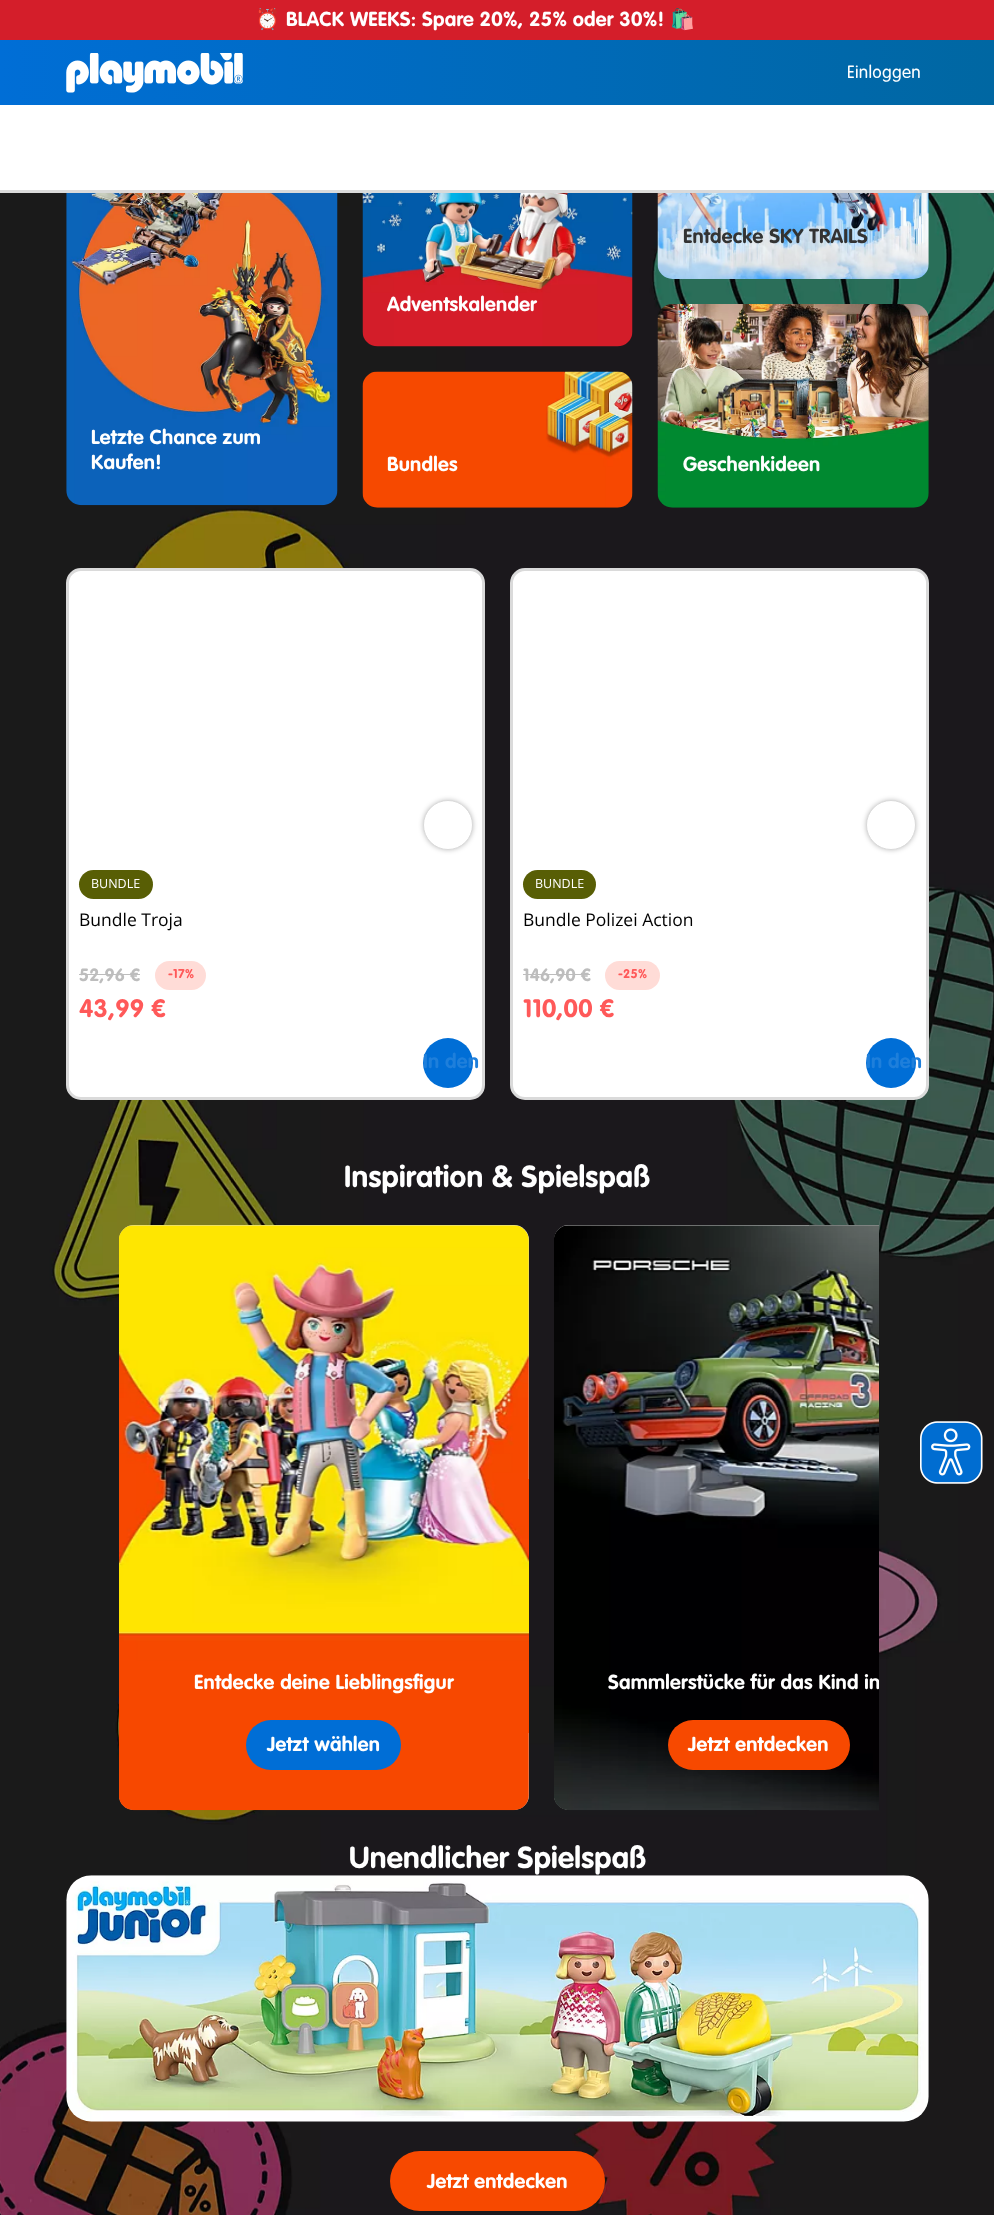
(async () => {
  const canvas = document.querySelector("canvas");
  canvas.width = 994;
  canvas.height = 2215;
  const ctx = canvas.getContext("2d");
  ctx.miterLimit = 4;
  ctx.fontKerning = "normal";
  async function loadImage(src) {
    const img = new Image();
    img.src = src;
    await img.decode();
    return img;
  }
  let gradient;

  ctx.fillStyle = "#ffffff";
  ctx.fillRect(0, 0, 994, 2215);
  ctx.fillStyle = "#d41e2a";
  ctx.fillRect(0, 0, 994, 40);
  gradient = ctx.createLinearGradient(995, 72, 0, 73);
  gradient.addColorStop(0, "#0067a2");
  gradient.addColorStop(1, "#006ed6");
  ctx.fillStyle = gradient;
  ctx.fillRect(0, 40, 994, 65);
  ctx.drawImage(await loadImage("img/1.png"), 66, 53, 177, 40);
  ctx.fillStyle = "#dadada";
  ctx.fillRect(0, 190, 994, 3);
  ctx.drawImage(await loadImage("img/2.png"), 0, 193, 994, 2022);
  ctx.drawImage(await loadImage("img/3.png"), 66, 193, 272, 313);
  ctx.drawImage(await loadImage("img/4.png"), 362, 193, 271, 154);
  ctx.drawImage(await loadImage("img/5.png"), 362, 371, 271, 137);
  ctx.drawImage(await loadImage("img/6.png"), 657, 193, 272, 86);
  ctx.drawImage(await loadImage("img/7.png"), 657, 304, 272, 204);
  ctx.fillStyle = "#ffffff";
  ctx.beginPath();
  ctx.roundRect(67.5, 569.5, 416, 529, 13.5);
  ctx.fill();
  ctx.strokeStyle = "#dadada";
  ctx.lineWidth = 3;
  ctx.stroke();
  ctx.fillStyle = "rgba(0, 0, 0, 0.25)";
  ctx.filter = "blur(2.5px)";
  ctx.beginPath();
  ctx.roundRect(423, 800, 50, 50, 25);
  ctx.fill();
  ctx.filter = "none";
  ctx.fillStyle = "#ffffff";
  ctx.beginPath();
  ctx.arc(448, 825, 24.5, 0, Math.PI * 2);
  ctx.fill();
  ctx.lineWidth = 1;
  ctx.stroke();
  ctx.fillStyle = "#585e05";
  ctx.beginPath();
  ctx.roundRect(79, 870, 74, 29, 14.5);
  ctx.fill();
  ctx.fillStyle = "#bdbdbd";
  ctx.fillRect(79, 974, 61, 1);
  ctx.fillStyle = "#ffdcd7";
  ctx.beginPath();
  ctx.roundRect(155, 961, 51, 29, 14.5);
  ctx.fill();
  ctx.fillStyle = "#006ed6";
  ctx.beginPath();
  ctx.arc(448, 1063, 25, 0, Math.PI * 2);
  ctx.fill();
  ctx.fillStyle = "#ffffff";
  ctx.beginPath();
  ctx.roundRect(511.5, 569.5, 416, 529, 13.5);
  ctx.fill();
  ctx.lineWidth = 3;
  ctx.stroke();
  ctx.fillStyle = "rgba(0, 0, 0, 0.25)";
  ctx.filter = "blur(2.5px)";
  ctx.beginPath();
  ctx.roundRect(866, 800, 50, 50, 25);
  ctx.fill();
  ctx.filter = "none";
  ctx.fillStyle = "#ffffff";
  ctx.beginPath();
  ctx.arc(891, 825, 24.5, 0, Math.PI * 2);
  ctx.fill();
  ctx.lineWidth = 1;
  ctx.stroke();
  ctx.fillStyle = "#585e05";
  ctx.beginPath();
  ctx.roundRect(523, 870, 73, 29, 14.5);
  ctx.fill();
  ctx.fillStyle = "#bdbdbd";
  ctx.fillRect(523, 974, 67, 1);
  ctx.fillStyle = "#ffdcd7";
  ctx.beginPath();
  ctx.roundRect(605, 961, 55, 29, 14.5);
  ctx.fill();
  ctx.fillStyle = "#006ed6";
  ctx.beginPath();
  ctx.arc(891, 1063, 25, 0, Math.PI * 2);
  ctx.fill();
  ctx.fillStyle = "#dadada";
  ctx.beginPath();
  ctx.roundRect(119, 1225, 410, 585, 15);
  ctx.fill();
  ctx.drawImage(await loadImage("img/8.png"), 119, 1225, 410, 586);
  ctx.fillStyle = "#006ed6";
  ctx.beginPath();
  ctx.roundRect(246, 1720, 155, 50, 25);
  ctx.fill();
  ctx.fillStyle = "#dadada";
  ctx.beginPath();
  ctx.roundRect(554, 1225, 325, 585, [15, 0, 0, 15]);
  ctx.fill();
  ctx.drawImage(await loadImage("img/9.png"), 554, 1225, 325, 586);
  ctx.fillStyle = "#f74900";
  ctx.beginPath();
  ctx.roundRect(668, 1720, 182, 50, 25);
  ctx.fill();
  ctx.drawImage(await loadImage("img/10.png"), 66, 1875, 863, 247);
  ctx.beginPath();
  ctx.roundRect(390, 2151, 215, 60, 30);
  ctx.fill();
  ctx.drawImage(await loadImage("img/11.png"), 920, 1421, 63, 63);
  ctx.letterSpacing = "0.25px";
  ctx.font = "bold 20px Noto Color Emoji";
  ctx.fillStyle = "#ffffff";
  ctx.fillText("⏰", 255, 26);
  ctx.font = "20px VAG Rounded";
  ctx.fillText("BLACK WEEKS: Spare 20%, 25% oder 30%!", 286, 26);
  ctx.font = "bold 20px Noto Color Emoji";
  ctx.fillText("🛍️", 670, 26);
  ctx.font = "17.5px 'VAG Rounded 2'";
  ctx.fillText("Einloggen", 847, 78);
  ctx.font = "20px VAG Rounded";
  for (const [text, x, y] of [
    ["Letzte Chance zum", 91, 444],
    ["Kaufen!", 91, 469],
    ["Adventskalender", 387, 311],
    ["Bundles", 387, 471],
  ]) {
    ctx.fillText(text, x, y);
  }
  ctx.fillStyle = "#333333";
  ctx.fillText("Entdecke SKY TRAILS", 683, 243);
  ctx.fillStyle = "#ffffff";
  ctx.fillText("Geschenkideen", 683, 471);
  ctx.letterSpacing = "0px";
  ctx.font = "12.5px Open Sans";
  ctx.fillText("BUNDLE", 91, 888);
  ctx.font = "17.5px Open Sans";
  ctx.fillStyle = "#000000";
  ctx.fillText("Bundle Troja", 79, 926);
  ctx.letterSpacing = "0.25px";
  ctx.font = "17.5px VAG Rounded";
  ctx.fillStyle = "#bdbdbd";
  ctx.fillText("52,96 €", 79, 981);
  ctx.font = "12.5px VAG Rounded";
  ctx.fillStyle = "#ff5959";
  ctx.fillText("-17%", 168, 978);
  ctx.font = "25px VAG Rounded";
  ctx.fillText("43,99 €", 79, 1017);
  ctx.font = "20px VAG Rounded";
  ctx.fillStyle = "#1e7fdb";
  ctx.fillText("In den", 423, 1068);
  ctx.letterSpacing = "0px";
  ctx.font = "12.5px Open Sans";
  ctx.fillStyle = "#ffffff";
  ctx.fillText("BUNDLE", 535, 888);
  ctx.font = "17.5px Open Sans";
  ctx.fillStyle = "#000000";
  ctx.fillText("Bundle Polizei Action", 523, 926);
  ctx.letterSpacing = "0.25px";
  ctx.font = "17.5px VAG Rounded";
  ctx.fillStyle = "#bdbdbd";
  ctx.fillText("146,90 €", 523, 981);
  ctx.font = "12.5px VAG Rounded";
  ctx.fillStyle = "#ff5959";
  ctx.fillText("-25%", 618, 978);
  ctx.font = "25px VAG Rounded";
  ctx.fillText("110,00 €", 523, 1017);
  ctx.font = "20px VAG Rounded";
  ctx.fillStyle = "#1e7fdb";
  ctx.fillText("In den", 866, 1068);
  ctx.font = "30px VAG Rounded";
  ctx.fillStyle = "#ffffff";
  ctx.fillText("Inspiration & Spielspaß", 344, 1187);
  ctx.font = "20px VAG Rounded";
  ctx.fillText("Entdecke deine Lieblingsfigur", 194, 1689);
  ctx.fillText("Jetzt wählen", 267, 1751);
  ctx.save();
  ctx.beginPath();
  ctx.rect(603, 1670, 276, 25);
  ctx.clip();
  ctx.fillText("Sammlerstücke für das Kind in", 608, 1689);
  ctx.restore();
  ctx.fillText("Jetzt entdecken", 688, 1751);
  ctx.font = "30px VAG Rounded";
  ctx.fillText("Unendlicher Spielspaß", 349, 1868);
  ctx.font = "20px VAG Rounded";
  ctx.fillText("Jetzt entdecken", 427, 2188);
})();
